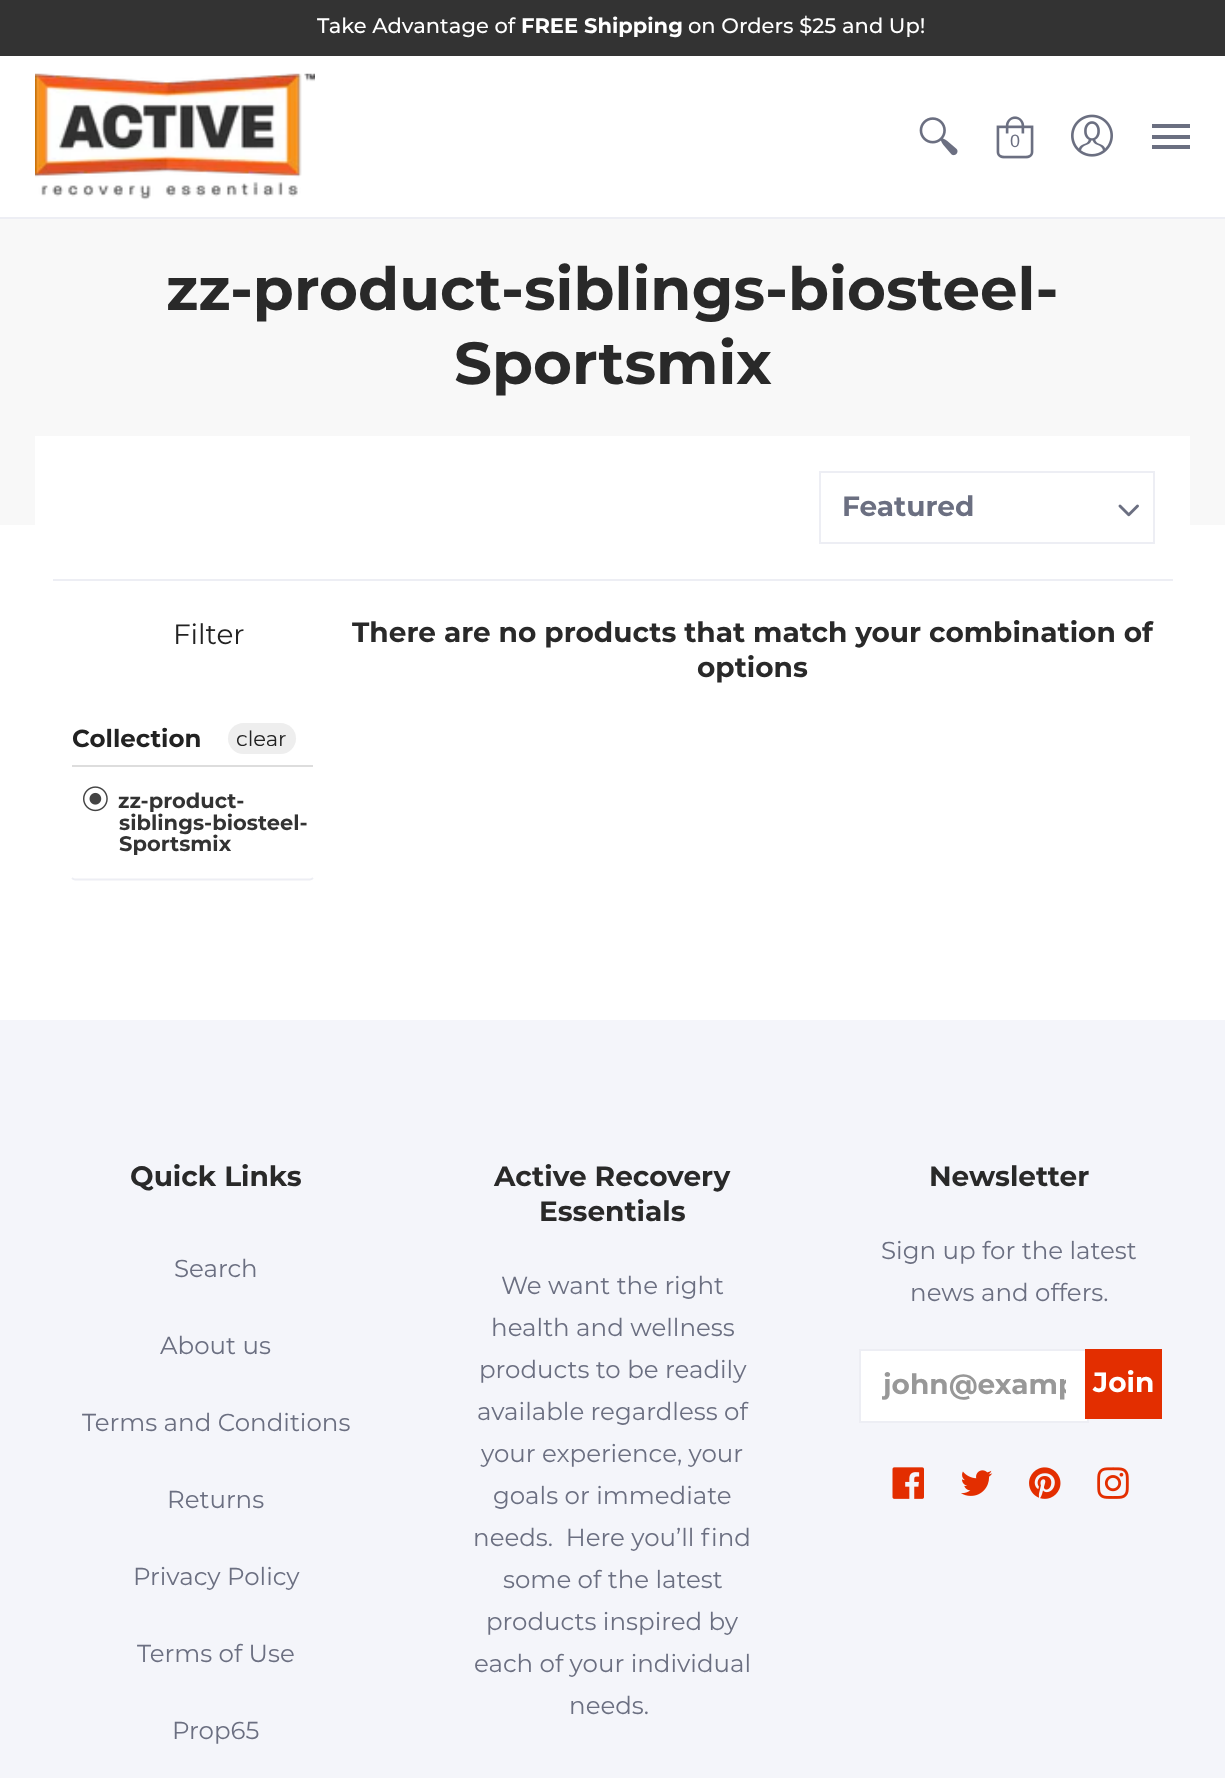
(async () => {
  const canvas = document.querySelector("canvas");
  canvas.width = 1225;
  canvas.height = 1778;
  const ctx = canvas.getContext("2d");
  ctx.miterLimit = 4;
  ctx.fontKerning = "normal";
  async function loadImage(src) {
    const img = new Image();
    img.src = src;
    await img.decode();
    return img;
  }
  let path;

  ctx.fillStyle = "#ffffff";
  ctx.fillRect(0, 0, 1225, 1778);
  ctx.fillStyle = "#333333";
  ctx.fillRect(0, 0, 1225, 56);
  ctx.fillStyle = "#edeef4";
  ctx.fillRect(0, 217, 1225, 2);
  ctx.drawImage(await loadImage("img/1.png"), 35, 73, 280, 127);
  ctx.drawImage(await loadImage("img/2.png"), 919, 117, 39, 39);
  ctx.drawImage(await loadImage("img/3.png"), 996, 116, 38, 43);
  ctx.drawImage(await loadImage("img/4.png"), 1071, 114, 42, 43);
  for (const [x, y, w, h, color] of [
    [1152, 124, 38, 4, "#6b6f81"],
    [1152, 145, 38, 4, "#6b6f81"],
    [1152, 135, 38, 4, "#6b6f81"],
    [0, 219, 1225, 306, "#f8f8f8"],
    [35, 436, 1155, 89, "#ffffff"],
    [53, 579, 1120, 2, "#edeef4"],
  ]) {
    ctx.fillStyle = color;
    ctx.fillRect(x, y, w, h);
  }
  ctx.drawImage(await loadImage("img/5.png"), 1118, 504, 21, 13);
  ctx.strokeStyle = "#edeef4";
  ctx.lineWidth = 2;
  ctx.strokeRect(820, 472, 334, 71);
  path = new Path2D("M313 878C312 879 311 879.5 310 879.5H75C74 879.5 73 879 72 878");
  ctx.lineWidth = 1.8;
  ctx.stroke(path);
  ctx.fillStyle = "#dddddd";
  ctx.fillRect(72, 765, 241, 2);
  ctx.fillStyle = "#eeeeee";
  ctx.beginPath();
  ctx.roundRect(228, 723, 68, 31, 15.5);
  ctx.fill();
  ctx.drawImage(await loadImage("img/6.png"), 83, 786, 25, 26);
  ctx.fillStyle = "#f4f5fa";
  ctx.fillRect(0, 1020, 1225, 758);
  ctx.fillStyle = "#ffffff";
  ctx.beginPath();
  ctx.rect(860, 1350, 228, 72);
  ctx.fill();
  ctx.lineWidth = 2;
  ctx.stroke();
  ctx.fillStyle = "#e32e00";
  ctx.fillRect(1085, 1349, 77, 70);
  ctx.drawImage(await loadImage("img/7.png"), 892, 1467, 32, 32);
  ctx.drawImage(await loadImage("img/8.png"), 961, 1470, 32, 26);
  ctx.drawImage(await loadImage("img/9.png"), 1029, 1467, 32, 32);
  ctx.drawImage(await loadImage("img/10.png"), 1097, 1467, 32, 32);
  ctx.font = "500 21px Montserrat";
  ctx.fillStyle = "#ffffff";
  ctx.fillText("Take Advantage of", 317, 33);
  ctx.font = "bold 21px Montserrat";
  ctx.fillText("FREE Shipping", 521, 33);
  ctx.font = "500 21px Montserrat";
  ctx.fillText("on Orders $25 and Up!", 688, 33);
  ctx.font = "18px Liberation Sans";
  ctx.fillStyle = "#6b6f81";
  ctx.fillText("0", 1010, 147);
  ctx.font = "bold 59.5px Montserrat";
  ctx.fillStyle = "#292929";
  ctx.fillText("zz-product-siblings-biosteel-", 166, 310);
  ctx.fillText("Sportsmix", 454, 384);
  ctx.font = "bold 28px Montserrat";
  ctx.fillStyle = "#6b6f81";
  ctx.fillText("Featured", 842, 516);
  ctx.font = "28px Montserrat";
  ctx.fillStyle = "#222222";
  ctx.fillText("Filter", 173, 644);
  ctx.font = "bold 24.5px Montserrat";
  ctx.fillText("Collection", 72, 747);
  ctx.font = "21px Montserrat";
  ctx.fillText("clear", 236, 746);
  ctx.font = "bold 21px Montserrat";
  ctx.fillStyle = "#333333";
  for (const [text, x, y] of [
    ["zz-product-", 118, 808],
    ["siblings-biosteel-", 119, 830],
    ["Sportsmix", 119, 851],
  ]) {
    ctx.fillText(text, x, y);
  }
  ctx.font = "bold 28px Montserrat";
  ctx.fillStyle = "#292929";
  for (const [text, x, y] of [
    ["There are no products that match your combination of", 352, 642],
    ["options", 697, 677],
    ["Quick Links", 130, 1186],
  ]) {
    ctx.fillText(text, x, y);
  }
  ctx.font = "24.5px Montserrat";
  ctx.fillStyle = "#6b6f81";
  for (const [text, x, y] of [
    ["Search", 174, 1277],
    ["About us", 160, 1354],
    ["Terms and Conditions", 82, 1431],
    ["Returns", 167, 1508],
    ["Privacy Policy", 133, 1585],
    ["Terms of Use", 137, 1662],
    ["Prop65", 172, 1739],
  ]) {
    ctx.fillText(text, x, y);
  }
  ctx.font = "bold 28px Montserrat";
  ctx.fillStyle = "#292929";
  ctx.fillText("Active Recovery", 494, 1186);
  ctx.fillText("Essentials", 539, 1221);
  ctx.font = "24.5px Montserrat";
  ctx.fillStyle = "#6b6f81";
  for (const [text, x, y] of [
    ["We want the right", 501, 1294],
    ["health and wellness", 491, 1336],
    ["products to be readily", 479, 1378],
    ["available regardless of", 477, 1420],
    ["your experience, your", 481, 1462],
    ["goals or immediate", 493, 1504],
    ["needs.  Here you’ll find", 473, 1546],
    ["some of the latest", 503, 1588],
    ["products inspired by", 486, 1630],
    ["each of your individual", 474, 1672],
    ["needs.", 569, 1714],
  ]) {
    ctx.fillText(text, x, y);
  }
  ctx.font = "bold 28px Montserrat";
  ctx.fillStyle = "#292929";
  ctx.fillText("Newsletter", 929, 1186);
  ctx.font = "24.5px Montserrat";
  ctx.fillStyle = "#6b6f81";
  ctx.fillText("Sign up for the latest", 881, 1259);
  ctx.fillText("news and offers.", 910, 1301);
  ctx.save();
  ctx.beginPath();
  ctx.rect(882, 1369, 184, 33);
  ctx.clip();
  ctx.font = "bold 28px Montserrat";
  ctx.fillStyle = "#989898";
  ctx.fillText("john@examp", 883, 1394);
  ctx.restore();
  ctx.font = "bold 28px Montserrat";
  ctx.fillStyle = "#ffffff";
  ctx.fillText("Join", 1093, 1392);
})();
